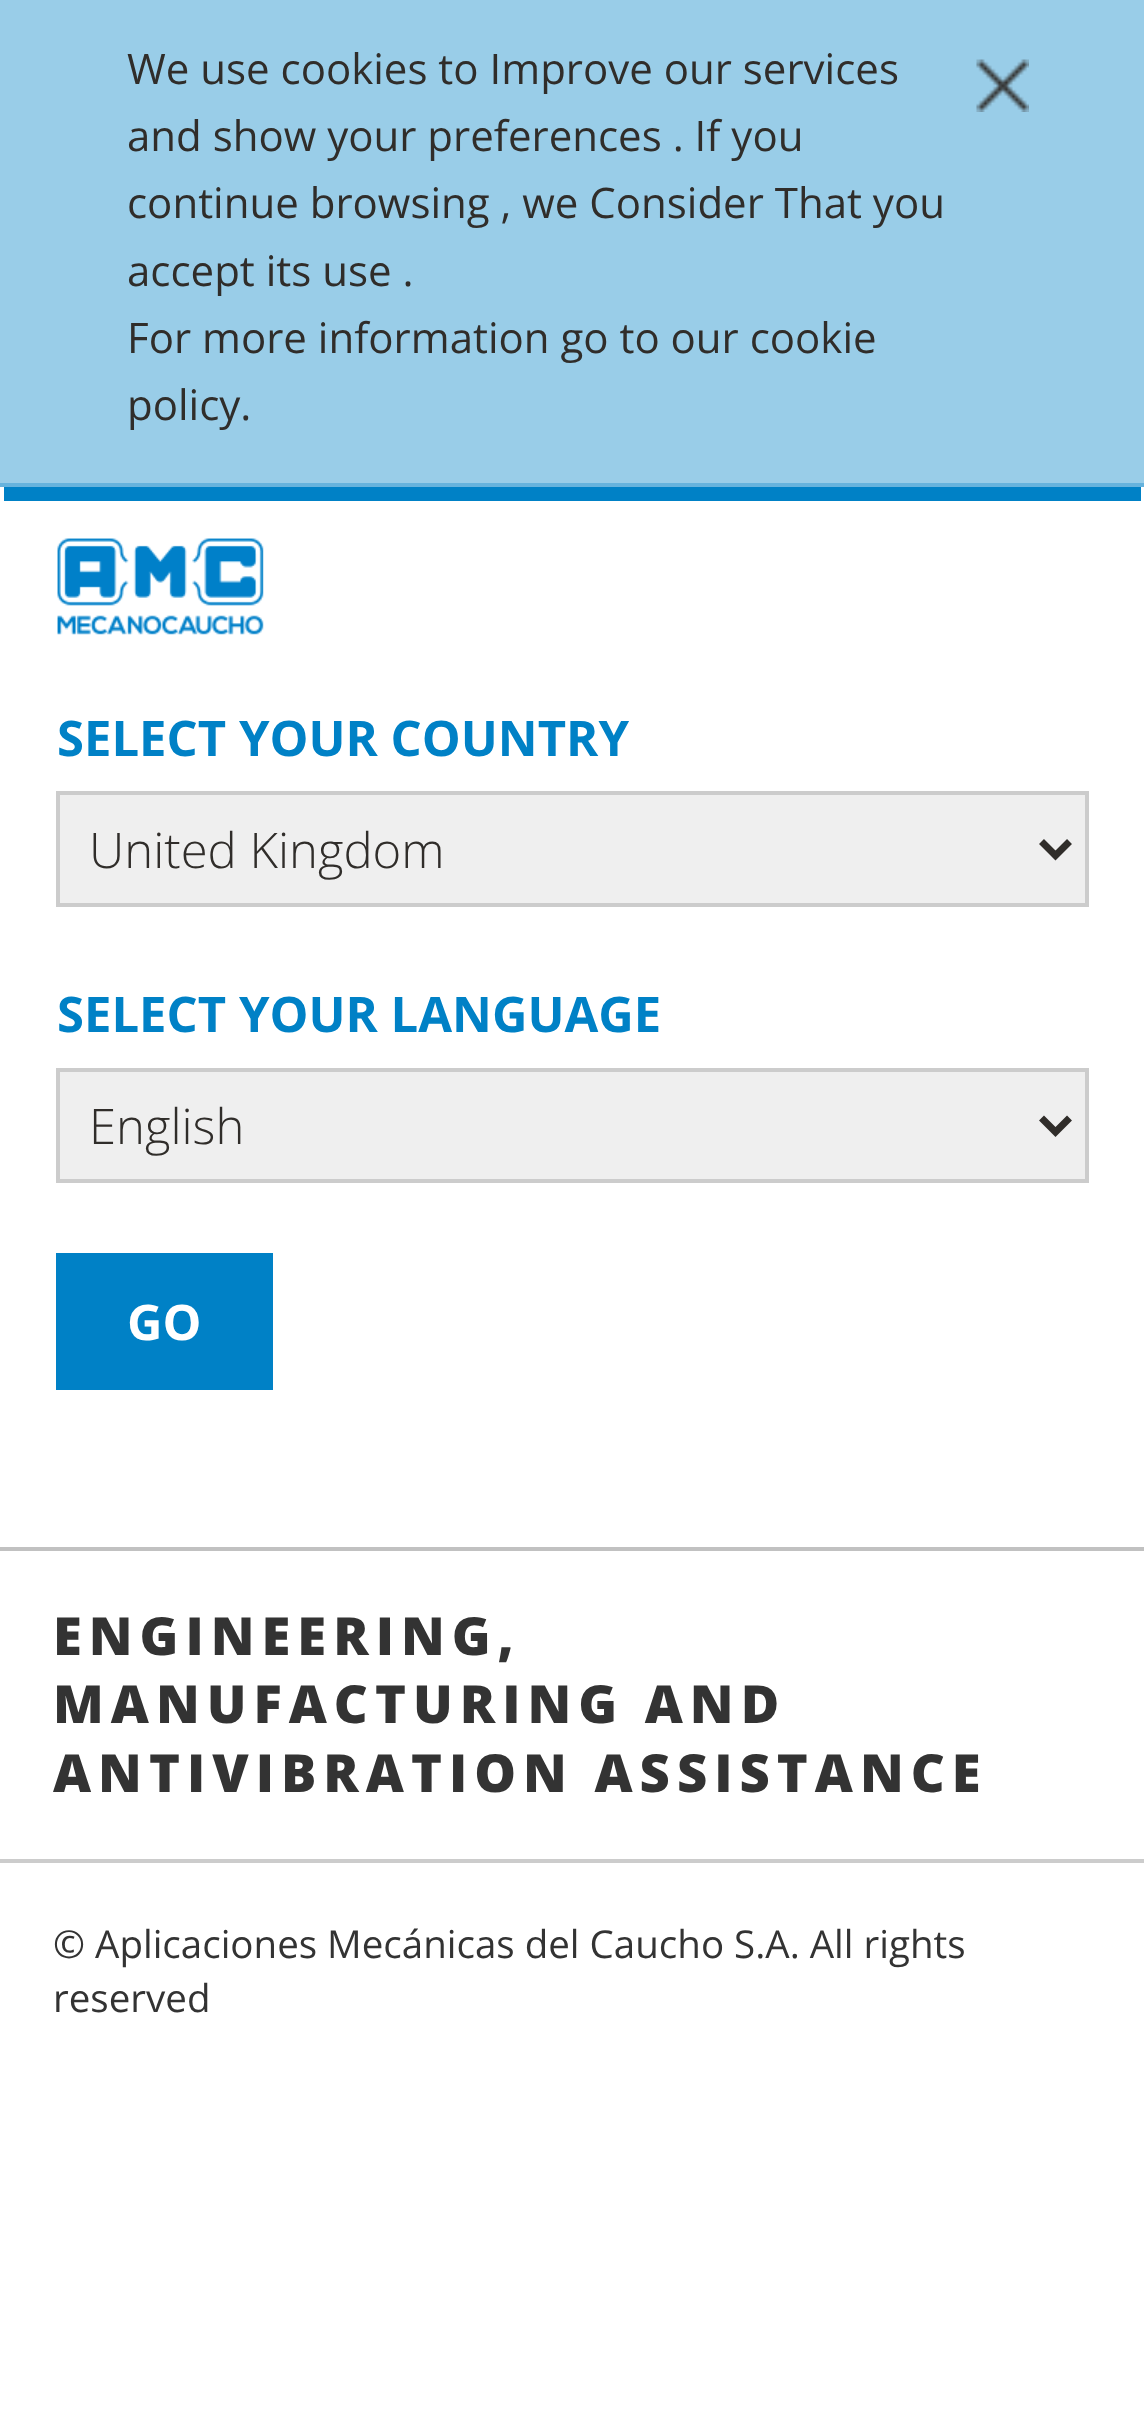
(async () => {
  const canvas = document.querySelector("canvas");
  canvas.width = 1144;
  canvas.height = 2419;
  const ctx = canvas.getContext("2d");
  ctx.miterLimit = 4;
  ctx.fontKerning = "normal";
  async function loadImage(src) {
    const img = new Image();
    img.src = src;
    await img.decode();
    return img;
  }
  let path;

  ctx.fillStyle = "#ffffff";
  ctx.fillRect(0, 0, 1144, 2419);
  ctx.fillStyle = "#99cde8";
  ctx.fillRect(0, 0, 1144, 483);
  ctx.fillStyle = "#66b3dd";
  ctx.fillRect(0, 483, 1144, 4);
  ctx.drawImage(await loadImage("img/1.png"), 976, 59, 53, 53);
  ctx.fillStyle = "#c1c1c1";
  ctx.fillRect(0, 1547, 1144, 4);
  ctx.fillStyle = "#0081c6";
  ctx.fillRect(4, 487, 1137, 14);
  ctx.drawImage(await loadImage("img/2.png"), 57, 538, 207, 97);
  ctx.fillStyle = "#efefef";
  ctx.beginPath();
  ctx.rect(58, 793, 1029, 112);
  ctx.fill();
  ctx.strokeStyle = "#cccccc";
  ctx.lineWidth = 4;
  ctx.stroke();
  path = new Path2D("M1041.5 841.5L1055.5 855.5L1069.5 841.5");
  ctx.strokeStyle = "#302d2a";
  ctx.lineWidth = 7;
  ctx.stroke(path);
  ctx.beginPath();
  ctx.rect(58, 1070, 1029, 111);
  ctx.fill();
  ctx.strokeStyle = "#cccccc";
  ctx.lineWidth = 4;
  ctx.stroke();
  path = new Path2D("M1041.5 1118L1055.5 1132L1069.5 1118");
  ctx.strokeStyle = "#302d2a";
  ctx.lineWidth = 7;
  ctx.stroke(path);
  ctx.fillStyle = "#0081c6";
  ctx.fillRect(56, 1253, 217, 137);
  ctx.fillStyle = "#cccccc";
  ctx.fillRect(0, 1859, 1144, 4);
  ctx.font = "42px Open Sans";
  ctx.fillStyle = "#302d2a";
  for (const [text, x, y] of [
    ["We use cookies to Improve our services", 127, 84],
    ["and show your preferences . If you", 127, 151],
    ["continue browsing , we Consider That you", 127, 218],
    ["accept its use .", 127, 286],
    ["For more information go to our cookie", 127, 353],
    ["policy.", 127, 420],
  ]) {
    ctx.fillText(text, x, y);
  }
  ctx.font = "bold 49px Open Sans";
  ctx.fillStyle = "#0081c6";
  ctx.fillText("SELECT YOUR COUNTRY", 57, 756);
  ctx.font = "300 49px Open Sans";
  ctx.fillStyle = "#302d2a";
  ctx.fillText("United Kingdom", 89, 868);
  ctx.font = "bold 49px Open Sans";
  ctx.fillStyle = "#0081c6";
  ctx.fillText("SELECT YOUR LANGUAGE", 57, 1032);
  ctx.font = "300 49px Open Sans";
  ctx.fillStyle = "#302d2a";
  ctx.fillText("English", 89, 1144);
  ctx.font = "bold 49px Open Sans";
  ctx.fillStyle = "#ffffff";
  ctx.fillText("GO", 127, 1340);
  ctx.letterSpacing = "7px";
  ctx.font = "800 52.5px Open Sans";
  ctx.fillStyle = "#333333";
  for (const [text, x, y] of [
    ["ENGINEERING,", 53, 1655],
    ["MANUFACTURING AND", 53, 1723],
    ["ANTIVIBRATION ASSISTANCE", 53, 1792],
  ]) {
    ctx.fillText(text, x, y);
  }
  ctx.letterSpacing = "0px";
  ctx.font = "38.5px Open Sans";
  ctx.fillText("© Aplicaciones Mecánicas del Caucho S.A. All rights", 53, 1958);
  ctx.fillText("reserved", 53, 2012);
})();
